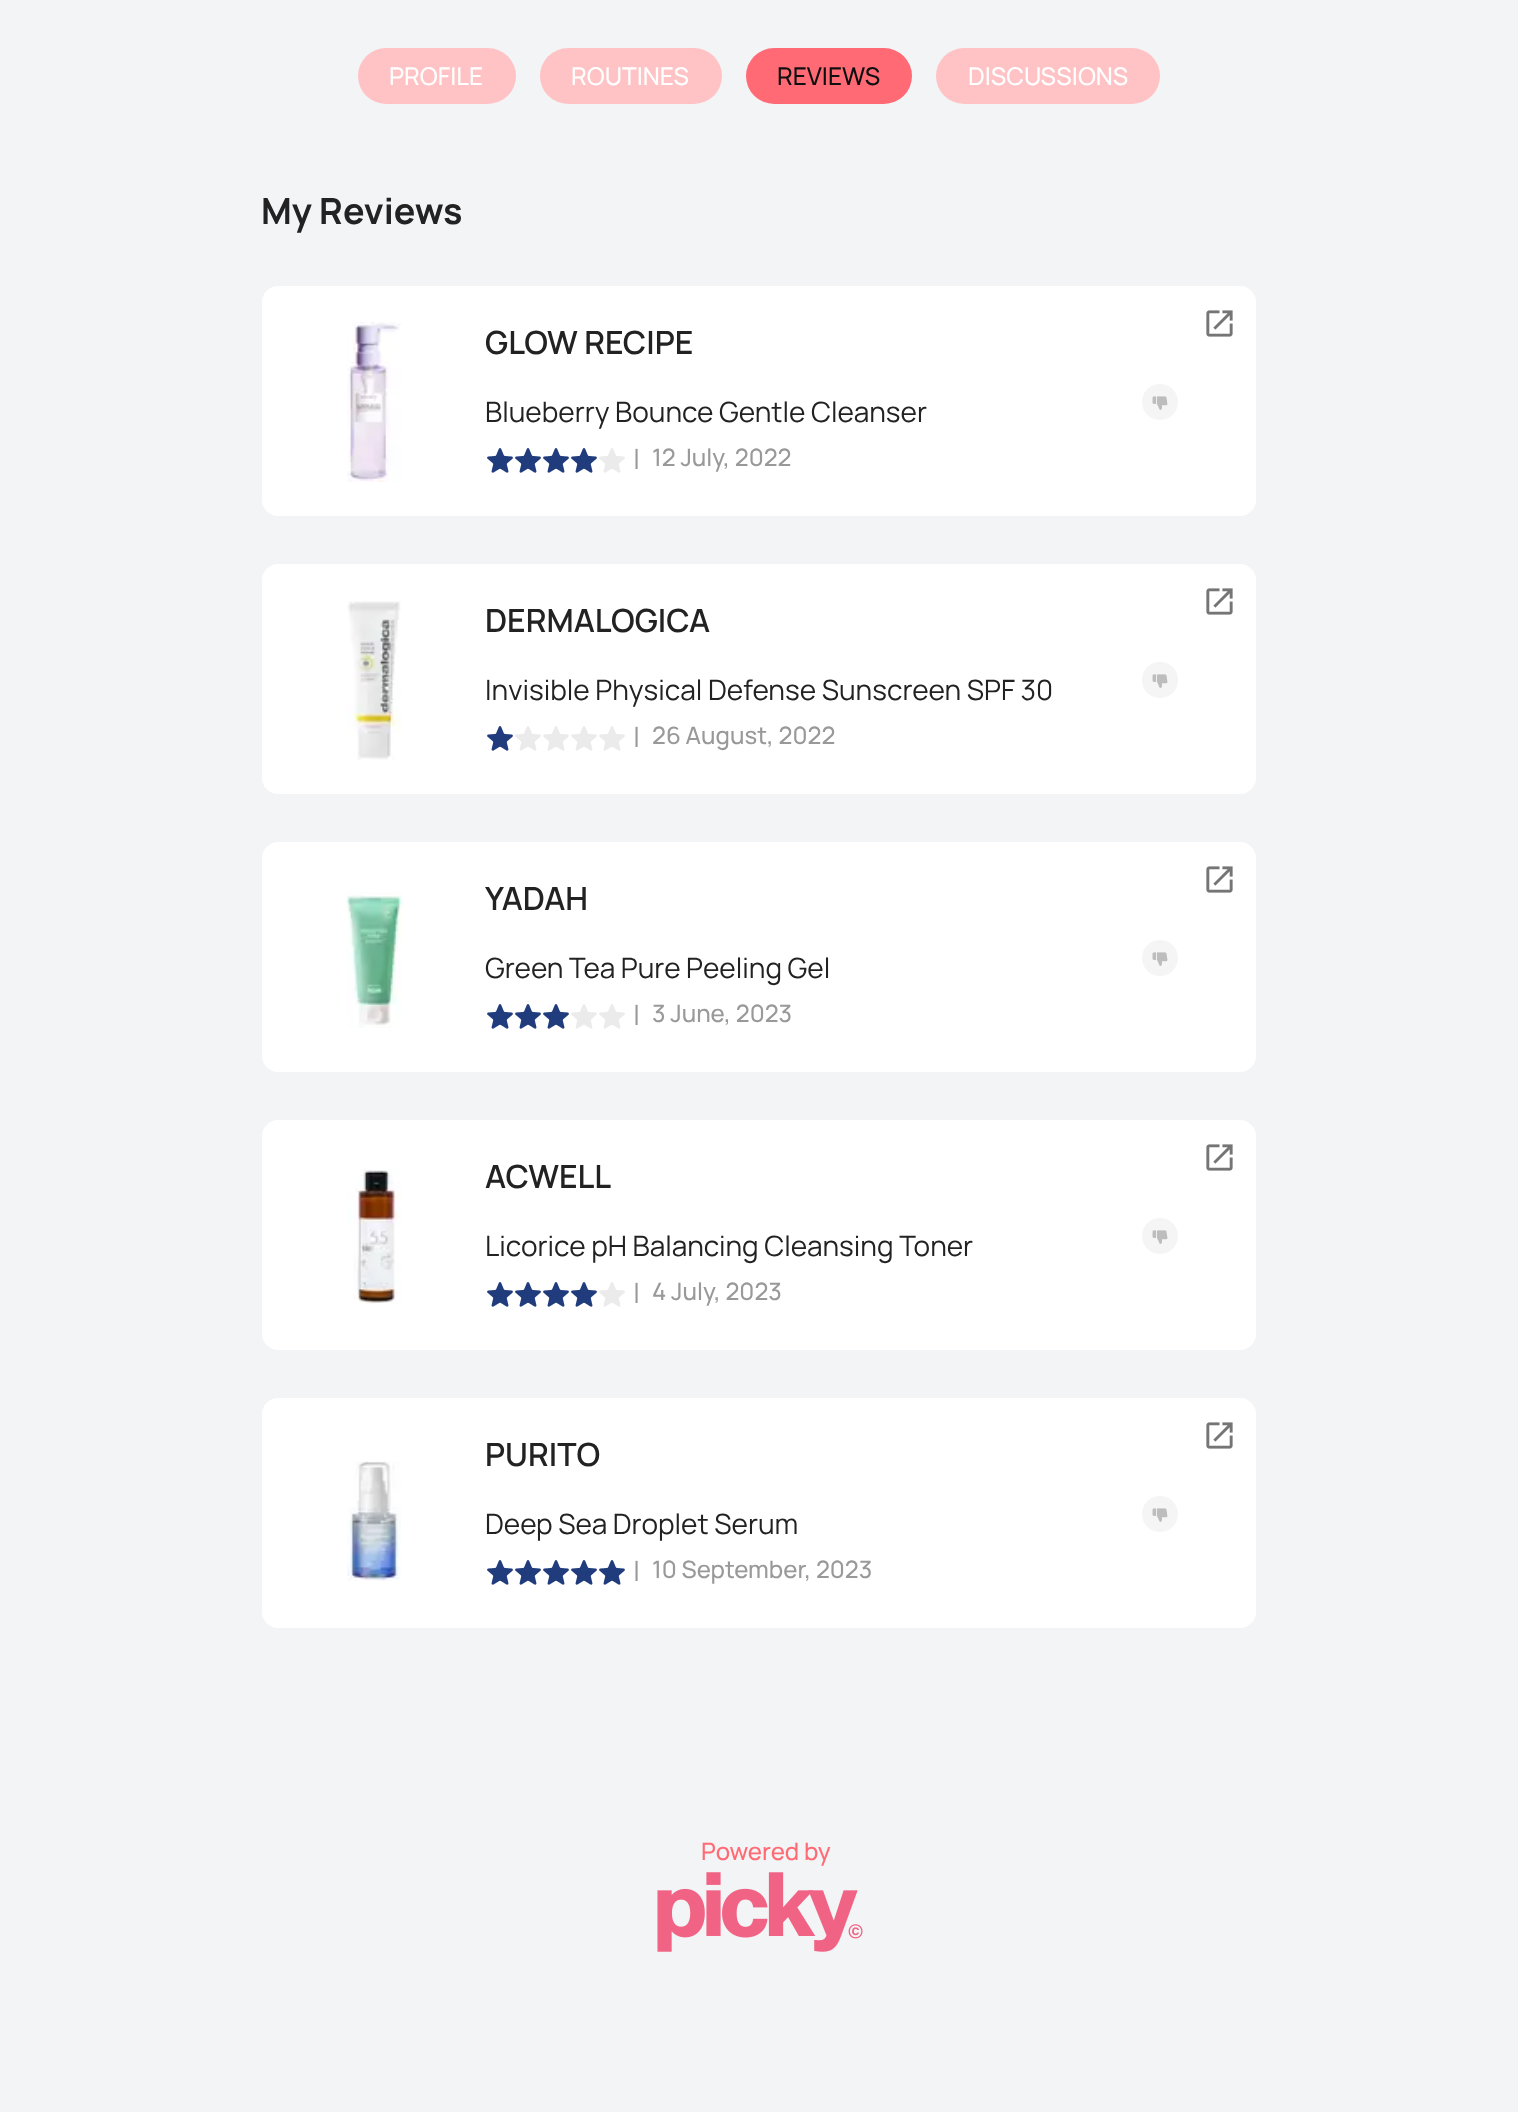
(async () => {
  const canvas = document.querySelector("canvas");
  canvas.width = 1518;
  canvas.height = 2112;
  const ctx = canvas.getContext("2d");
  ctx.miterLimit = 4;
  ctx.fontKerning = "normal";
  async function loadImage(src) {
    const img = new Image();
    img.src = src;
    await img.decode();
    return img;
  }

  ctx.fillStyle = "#f3f4f6";
  ctx.fillRect(0, 0, 1518, 2112);
  ctx.fillStyle = "#ffc3c6";
  ctx.beginPath();
  ctx.roundRect(358, 48, 158, 56, 28);
  ctx.fill();
  ctx.beginPath();
  ctx.roundRect(540, 48, 182, 56, 28);
  ctx.fill();
  ctx.fillStyle = "#ff6a74";
  ctx.beginPath();
  ctx.roundRect(746, 48, 166, 56, 28);
  ctx.fill();
  ctx.fillStyle = "#ffc3c6";
  ctx.beginPath();
  ctx.roundRect(936, 48, 224, 56, 28);
  ctx.fill();
  ctx.fillStyle = "#ffffff";
  ctx.beginPath();
  ctx.roundRect(262, 286, 994, 230, 16);
  ctx.fill();
  ctx.drawImage(await loadImage("img/1.png"), 1206, 310, 27, 27);
  ctx.drawImage(await loadImage("img/2.png"), 347, 322, 54, 160);
  ctx.drawImage(await loadImage("img/3.png"), 487, 448, 26, 25);
  ctx.drawImage(await loadImage("img/3.png"), 515, 448, 26, 25);
  ctx.drawImage(await loadImage("img/3.png"), 543, 448, 26, 25);
  ctx.drawImage(await loadImage("img/3.png"), 571, 448, 26, 25);
  ctx.drawImage(await loadImage("img/4.png"), 599, 448, 26, 25);
  ctx.drawImage(await loadImage("img/5.png"), 1142, 384, 36, 36);
  ctx.beginPath();
  ctx.roundRect(262, 564, 994, 230, 16);
  ctx.fill();
  ctx.drawImage(await loadImage("img/1.png"), 1206, 588, 27, 27);
  ctx.drawImage(await loadImage("img/6.png"), 346, 601, 55, 159);
  ctx.drawImage(await loadImage("img/3.png"), 487, 726, 26, 25);
  ctx.drawImage(await loadImage("img/4.png"), 515, 726, 26, 25);
  ctx.drawImage(await loadImage("img/4.png"), 543, 726, 26, 25);
  ctx.drawImage(await loadImage("img/4.png"), 571, 726, 26, 25);
  ctx.drawImage(await loadImage("img/4.png"), 599, 726, 26, 25);
  ctx.drawImage(await loadImage("img/5.png"), 1142, 662, 36, 36);
  ctx.beginPath();
  ctx.roundRect(262, 842, 994, 230, 16);
  ctx.fill();
  ctx.drawImage(await loadImage("img/1.png"), 1206, 866, 27, 27);
  ctx.drawImage(await loadImage("img/7.png"), 346, 892, 57, 136);
  ctx.drawImage(await loadImage("img/3.png"), 487, 1004, 26, 25);
  ctx.drawImage(await loadImage("img/3.png"), 515, 1004, 26, 25);
  ctx.drawImage(await loadImage("img/3.png"), 543, 1004, 26, 25);
  ctx.drawImage(await loadImage("img/4.png"), 571, 1004, 26, 25);
  ctx.drawImage(await loadImage("img/4.png"), 599, 1004, 26, 25);
  ctx.drawImage(await loadImage("img/5.png"), 1142, 940, 36, 36);
  ctx.beginPath();
  ctx.roundRect(262, 1120, 994, 230, 16);
  ctx.fill();
  ctx.drawImage(await loadImage("img/1.png"), 1206, 1144, 27, 27);
  ctx.drawImage(await loadImage("img/8.png"), 347, 1169, 54, 135);
  ctx.drawImage(await loadImage("img/3.png"), 487, 1282, 26, 25);
  ctx.drawImage(await loadImage("img/3.png"), 515, 1282, 26, 25);
  ctx.drawImage(await loadImage("img/3.png"), 543, 1282, 26, 25);
  ctx.drawImage(await loadImage("img/3.png"), 571, 1282, 26, 25);
  ctx.drawImage(await loadImage("img/4.png"), 599, 1282, 26, 25);
  ctx.drawImage(await loadImage("img/5.png"), 1142, 1218, 36, 36);
  ctx.beginPath();
  ctx.roundRect(262, 1398, 994, 230, 16);
  ctx.fill();
  ctx.drawImage(await loadImage("img/1.png"), 1206, 1422, 27, 27);
  ctx.drawImage(await loadImage("img/9.png"), 347, 1461, 54, 120);
  ctx.drawImage(await loadImage("img/3.png"), 487, 1560, 26, 25);
  ctx.drawImage(await loadImage("img/3.png"), 515, 1560, 26, 25);
  ctx.drawImage(await loadImage("img/3.png"), 543, 1560, 26, 25);
  ctx.drawImage(await loadImage("img/3.png"), 571, 1560, 26, 25);
  ctx.drawImage(await loadImage("img/3.png"), 599, 1560, 26, 25);
  ctx.drawImage(await loadImage("img/5.png"), 1142, 1496, 36, 36);
  ctx.drawImage(await loadImage("img/10.png"), 657, 1872, 206, 80);
  ctx.font = "500 24.5px Manrope";
  ctx.fillText("PROFILE", 389, 85);
  ctx.fillText("ROUTINES", 571, 85);
  ctx.fillStyle = "#0d0f11";
  ctx.fillText("REVIEWS", 777, 85);
  ctx.fillStyle = "#ffffff";
  ctx.fillText("DISCUSSIONS", 968, 85);
  ctx.font = "bold 36px Manrope";
  ctx.fillStyle = "#222222";
  ctx.fillText("My Reviews", 261, 224);
  ctx.font = "600 32px Manrope";
  ctx.fillText("GLOW RECIPE", 485, 354);
  ctx.font = "28px Manrope";
  ctx.fillText("Blueberry Bounce Gentle Cleanser", 485, 422);
  ctx.fillStyle = "#999999";
  ctx.fillText("|", 633, 469);
  ctx.font = "500 24px Manrope";
  ctx.fillText("12 July, 2022", 652, 466);
  ctx.font = "600 32px Manrope";
  ctx.fillStyle = "#222222";
  ctx.fillText("DERMALOGICA", 485, 632);
  ctx.font = "28px Manrope";
  ctx.fillText("Invisible Physical Defense Sunscreen SPF 30", 485, 700);
  ctx.fillStyle = "#999999";
  ctx.fillText("|", 633, 747);
  ctx.font = "500 24px Manrope";
  ctx.fillText("26 August, 2022", 652, 744);
  ctx.font = "600 32px Manrope";
  ctx.fillStyle = "#222222";
  ctx.fillText("YADAH", 485, 910);
  ctx.font = "28px Manrope";
  ctx.fillText("Green Tea Pure Peeling Gel", 485, 978);
  ctx.fillStyle = "#999999";
  ctx.fillText("|", 633, 1025);
  ctx.font = "500 24px Manrope";
  ctx.fillText("3 June, 2023", 652, 1022);
  ctx.font = "600 32px Manrope";
  ctx.fillStyle = "#222222";
  ctx.fillText("ACWELL", 485, 1188);
  ctx.font = "28px Manrope";
  ctx.fillText("Licorice pH Balancing Cleansing Toner", 485, 1256);
  ctx.fillStyle = "#999999";
  ctx.fillText("|", 633, 1303);
  ctx.font = "500 24px Manrope";
  ctx.fillText("4 July, 2023", 652, 1300);
  ctx.font = "600 32px Manrope";
  ctx.fillStyle = "#222222";
  ctx.fillText("PURITO", 485, 1466);
  ctx.font = "28px Manrope";
  ctx.fillText("Deep Sea Droplet Serum", 485, 1534);
  ctx.fillStyle = "#999999";
  ctx.fillText("|", 633, 1581);
  ctx.font = "500 24px Manrope";
  ctx.fillText("10 September, 2023", 652, 1578);
  ctx.fillStyle = "#ff6a74";
  ctx.fillText("Powered by", 701, 1860);
})();
